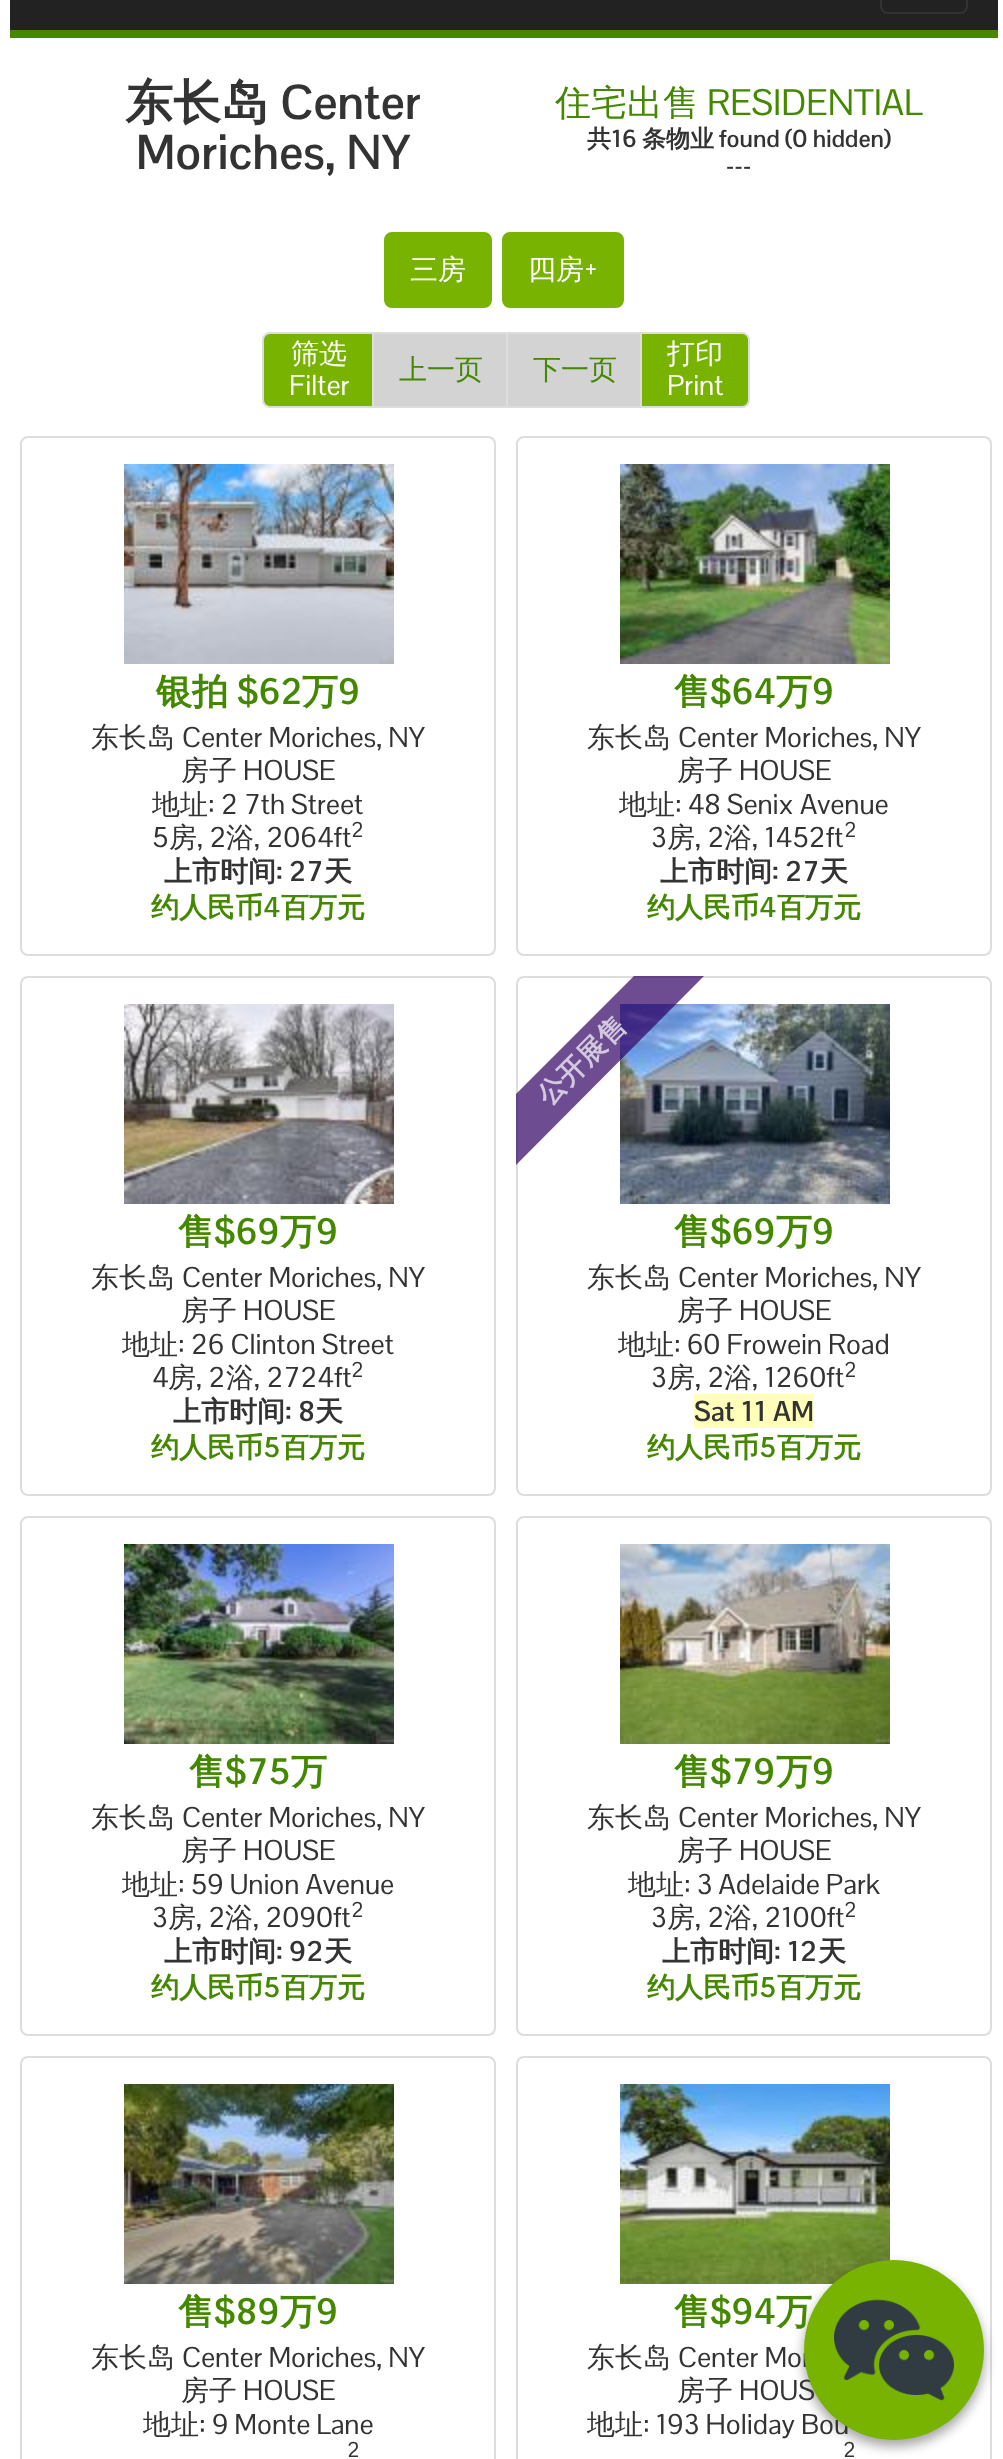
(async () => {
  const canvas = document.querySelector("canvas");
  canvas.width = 1003;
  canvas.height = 2459;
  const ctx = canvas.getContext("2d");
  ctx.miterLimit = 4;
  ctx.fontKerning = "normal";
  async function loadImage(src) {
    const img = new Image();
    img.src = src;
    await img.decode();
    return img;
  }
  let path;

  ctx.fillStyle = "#ffffff";
  ctx.fillRect(0, 0, 1003, 2459);
  ctx.fillStyle = "#222222";
  ctx.fillRect(10, 0, 988, 30);
  ctx.fillStyle = "#448800";
  ctx.fillRect(10, 30, 988, 8);
  ctx.beginPath();
  ctx.roundRect(881, -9, 86, 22, 7);
  ctx.strokeStyle = "#333333";
  ctx.lineWidth = 2;
  ctx.stroke();
  ctx.beginPath();
  ctx.roundRect(517, 2057, 474, 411, 7);
  ctx.strokeStyle = "#dddddd";
  ctx.stroke();
  ctx.drawImage(await loadImage("img/9.png"), 620, 2084, 270, 200);
  ctx.fillStyle = "rgba(0, 0, 0, 0.23)";
  ctx.filter = "blur(6px)";
  ctx.beginPath();
  ctx.roundRect(804, 2266, 180, 180, 90);
  ctx.fill();
  ctx.filter = "none";
  ctx.fillStyle = "rgba(0, 0, 0, 0.16)";
  ctx.filter = "blur(6px)";
  ctx.beginPath();
  ctx.roundRect(804, 2266, 180, 180, 90);
  ctx.fill();
  ctx.filter = "none";
  ctx.fillStyle = "#77b300";
  ctx.beginPath();
  ctx.roundRect(385, 233, 106, 74, 7);
  ctx.fill();
  ctx.strokeStyle = "#77b300";
  ctx.stroke();
  ctx.beginPath();
  ctx.roundRect(503, 233, 120, 74, 7);
  ctx.fill();
  ctx.stroke();
  ctx.beginPath();
  ctx.roundRect(263, 333, 110, 74, [7, 0, 0, 7]);
  ctx.fill();
  ctx.strokeStyle = "#dddddd";
  ctx.stroke();
  ctx.fillStyle = "#d3d3d3";
  ctx.beginPath();
  ctx.rect(373, 333, 134, 74);
  ctx.fill();
  ctx.stroke();
  ctx.beginPath();
  ctx.rect(507, 333, 134, 74);
  ctx.fill();
  ctx.stroke();
  ctx.fillStyle = "#77b300";
  ctx.beginPath();
  ctx.roundRect(641, 333, 108, 74, [0, 7, 7, 0]);
  ctx.fill();
  ctx.stroke();
  ctx.beginPath();
  ctx.roundRect(21, 437, 474, 518, 7);
  ctx.stroke();
  ctx.drawImage(await loadImage("img/2.png"), 124, 464, 270, 200);
  ctx.beginPath();
  ctx.roundRect(517, 437, 474, 518, 7);
  ctx.stroke();
  ctx.drawImage(await loadImage("img/3.png"), 620, 464, 270, 200);
  ctx.beginPath();
  ctx.roundRect(21, 977, 474, 518, 7);
  ctx.stroke();
  ctx.drawImage(await loadImage("img/4.png"), 124, 1004, 270, 200);
  ctx.beginPath();
  ctx.roundRect(517, 977, 474, 518, 7);
  ctx.stroke();
  ctx.drawImage(await loadImage("img/5.png"), 620, 1004, 270, 200);
  ctx.fillStyle = "rgba(48, 0, 100, 0.7)";
  path = new Path2D("M704 976L516 1165V1094L634 976Z");
  ctx.fill(path);
  ctx.fillStyle = "#ffffba";
  ctx.fillRect(694, 1394, 120, 34);
  ctx.beginPath();
  ctx.roundRect(21, 1517, 474, 518, 7);
  ctx.stroke();
  ctx.drawImage(await loadImage("img/6.png"), 124, 1544, 270, 200);
  ctx.beginPath();
  ctx.roundRect(517, 1517, 474, 518, 7);
  ctx.stroke();
  ctx.drawImage(await loadImage("img/7.png"), 620, 1544, 270, 200);
  ctx.beginPath();
  ctx.roundRect(21, 2057, 474, 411, 7);
  ctx.stroke();
  ctx.drawImage(await loadImage("img/8.png"), 124, 2084, 270, 200);
  ctx.font = "bold 48px WenQuanYi Zen Hei";
  ctx.fillStyle = "#333333";
  ctx.fillText("东长岛", 125, 119);
  ctx.font = "bold 48px Pontano Sans";
  ctx.fillText("Center", 280, 119);
  ctx.fillText("Moriches, NY", 136, 169);
  ctx.font = "500 36px WenQuanYi Zen Hei";
  ctx.fillStyle = "#448800";
  ctx.fillText("住宅出售", 555, 115);
  ctx.font = "36px Pontano Sans";
  ctx.fillText("RESIDENTIAL", 707, 115);
  ctx.font = "bold 24px WenQuanYi Zen Hei";
  ctx.fillStyle = "#333333";
  ctx.fillText("共", 587, 147);
  ctx.font = "bold 24px Pontano Sans";
  ctx.fillText("16", 611, 147);
  ctx.font = "bold 24px WenQuanYi Zen Hei";
  ctx.fillText("条物业", 642, 147);
  ctx.font = "bold 24px Pontano Sans";
  ctx.fillText("found (0 hidden)", 719, 147);
  ctx.fillText("---", 726, 173);
  ctx.font = "500 28px WenQuanYi Zen Hei";
  ctx.fillStyle = "#ffffff";
  ctx.fillText("三房", 410, 279);
  ctx.fillText("四房", 528, 279);
  ctx.font = "28px Pontano Sans";
  ctx.fillText("+", 584, 279);
  ctx.font = "500 28px WenQuanYi Zen Hei";
  ctx.fillText("筛选", 291, 363);
  ctx.font = "28px Pontano Sans";
  ctx.fillText("Filter", 289, 395);
  ctx.font = "500 28px WenQuanYi Zen Hei";
  ctx.fillStyle = "#448800";
  ctx.fillText("上一页", 399, 379);
  ctx.fillText("下一页", 533, 379);
  ctx.fillStyle = "#ffffff";
  ctx.fillText("打印", 667, 363);
  ctx.font = "28px Pontano Sans";
  ctx.fillText("Print", 667, 395);
  ctx.font = "bold 36px WenQuanYi Zen Hei";
  ctx.fillStyle = "#448800";
  ctx.fillText("银拍", 156, 704);
  ctx.font = "bold 36px Pontano Sans";
  ctx.fillText("$62", 237, 704);
  ctx.font = "bold 36px WenQuanYi Zen Hei";
  ctx.fillText("万", 302, 704);
  ctx.font = "bold 36px Pontano Sans";
  ctx.fillText("9", 338, 704);
  ctx.font = "500 28px WenQuanYi Zen Hei";
  ctx.fillStyle = "#333333";
  ctx.fillText("东长岛", 91, 747);
  ctx.font = "28px Pontano Sans";
  ctx.fillText("Center Moriches, NY", 182, 747);
  ctx.font = "500 28px WenQuanYi Zen Hei";
  ctx.fillText("房子", 181, 780);
  ctx.font = "28px Pontano Sans";
  ctx.fillText("HOUSE", 243, 780);
  ctx.font = "500 28px WenQuanYi Zen Hei";
  ctx.fillText("地址", 152, 814);
  ctx.font = "28px Pontano Sans";
  ctx.fillText(": 2 7th Street", 208, 814);
  ctx.fillText("5", 152, 847);
  ctx.font = "500 28px WenQuanYi Zen Hei";
  ctx.fillText("房", 169, 847);
  ctx.font = "28px Pontano Sans";
  ctx.fillText(", 2", 197, 847);
  ctx.font = "500 28px WenQuanYi Zen Hei";
  ctx.fillText("浴", 226, 847);
  ctx.font = "28px Pontano Sans";
  ctx.fillText(", 2064ft", 254, 847);
  ctx.font = "21px Pontano Sans";
  ctx.fillText("2", 351, 837);
  ctx.font = "bold 28px WenQuanYi Zen Hei";
  ctx.fillText("上市时间", 164, 881);
  ctx.font = "bold 28px Pontano Sans";
  ctx.fillText(": 27", 276, 881);
  ctx.font = "bold 28px WenQuanYi Zen Hei";
  ctx.fillText("天", 324, 881);
  ctx.fillStyle = "#448800";
  ctx.fillText("约人民币", 151, 917);
  ctx.font = "bold 28px Pontano Sans";
  ctx.fillText("4", 263, 917);
  ctx.font = "bold 28px WenQuanYi Zen Hei";
  ctx.fillText("百万元", 281, 917);
  ctx.font = "bold 36px WenQuanYi Zen Hei";
  ctx.fillText("售", 674, 704);
  ctx.font = "bold 36px Pontano Sans";
  ctx.fillText("$64", 710, 704);
  ctx.font = "bold 36px WenQuanYi Zen Hei";
  ctx.fillText("万", 776, 704);
  ctx.font = "bold 36px Pontano Sans";
  ctx.fillText("9", 812, 704);
  ctx.font = "500 28px WenQuanYi Zen Hei";
  ctx.fillStyle = "#333333";
  ctx.fillText("东长岛", 587, 747);
  ctx.font = "28px Pontano Sans";
  ctx.fillText("Center Moriches, NY", 678, 747);
  ctx.font = "500 28px WenQuanYi Zen Hei";
  ctx.fillText("房子", 677, 780);
  ctx.font = "28px Pontano Sans";
  ctx.fillText("HOUSE", 739, 780);
  ctx.font = "500 28px WenQuanYi Zen Hei";
  ctx.fillText("地址", 619, 814);
  ctx.font = "28px Pontano Sans";
  ctx.fillText(": 48 Senix Avenue", 675, 814);
  ctx.fillText("3", 651, 847);
  ctx.font = "500 28px WenQuanYi Zen Hei";
  ctx.fillText("房", 667, 847);
  ctx.font = "28px Pontano Sans";
  ctx.fillText(", 2", 695, 847);
  ctx.font = "500 28px WenQuanYi Zen Hei";
  ctx.fillText("浴", 724, 847);
  ctx.font = "28px Pontano Sans";
  ctx.fillText(", 1452ft", 752, 847);
  ctx.font = "21px Pontano Sans";
  ctx.fillText("2", 844, 837);
  ctx.font = "bold 28px WenQuanYi Zen Hei";
  ctx.fillText("上市时间", 660, 881);
  ctx.font = "bold 28px Pontano Sans";
  ctx.fillText(": 27", 772, 881);
  ctx.font = "bold 28px WenQuanYi Zen Hei";
  ctx.fillText("天", 820, 881);
  ctx.fillStyle = "#448800";
  ctx.fillText("约人民币", 647, 917);
  ctx.font = "bold 28px Pontano Sans";
  ctx.fillText("4", 759, 917);
  ctx.font = "bold 28px WenQuanYi Zen Hei";
  ctx.fillText("百万元", 777, 917);
  ctx.font = "bold 36px WenQuanYi Zen Hei";
  ctx.fillText("售", 178, 1244);
  ctx.font = "bold 36px Pontano Sans";
  ctx.fillText("$69", 214, 1244);
  ctx.font = "bold 36px WenQuanYi Zen Hei";
  ctx.fillText("万", 280, 1244);
  ctx.font = "bold 36px Pontano Sans";
  ctx.fillText("9", 316, 1244);
  ctx.font = "500 28px WenQuanYi Zen Hei";
  ctx.fillStyle = "#333333";
  ctx.fillText("东长岛", 91, 1287);
  ctx.font = "28px Pontano Sans";
  ctx.fillText("Center Moriches, NY", 182, 1287);
  ctx.font = "500 28px WenQuanYi Zen Hei";
  ctx.fillText("房子", 181, 1320);
  ctx.font = "28px Pontano Sans";
  ctx.fillText("HOUSE", 243, 1320);
  ctx.font = "500 28px WenQuanYi Zen Hei";
  ctx.fillText("地址", 122, 1354);
  ctx.font = "28px Pontano Sans";
  ctx.fillText(": 26 Clinton Street", 178, 1354);
  ctx.fillText("4", 152, 1387);
  ctx.font = "500 28px WenQuanYi Zen Hei";
  ctx.fillText("房", 168, 1387);
  ctx.font = "28px Pontano Sans";
  ctx.fillText(", 2", 196, 1387);
  ctx.font = "500 28px WenQuanYi Zen Hei";
  ctx.fillText("浴", 226, 1387);
  ctx.font = "28px Pontano Sans";
  ctx.fillText(", 2724ft", 254, 1387);
  ctx.font = "21px Pontano Sans";
  ctx.fillText("2", 351, 1377);
  ctx.font = "bold 28px WenQuanYi Zen Hei";
  ctx.fillText("上市时间", 173, 1421);
  ctx.font = "bold 28px Pontano Sans";
  ctx.fillText(": 8", 285, 1421);
  ctx.font = "bold 28px WenQuanYi Zen Hei";
  ctx.fillText("天", 315, 1421);
  ctx.fillStyle = "#448800";
  ctx.fillText("约人民币", 151, 1457);
  ctx.font = "bold 28px Pontano Sans";
  ctx.fillText("5", 263, 1457);
  ctx.font = "bold 28px WenQuanYi Zen Hei";
  ctx.fillText("百万元", 281, 1457);
  ctx.fillStyle = "#d3c9de";
  ctx.save();
  ctx.translate(549, 1107);
  ctx.rotate(-45 * Math.PI / 180);
  ctx.fillText("公开展售", 0, 0);
  ctx.restore();
  ctx.font = "bold 36px WenQuanYi Zen Hei";
  ctx.fillStyle = "#448800";
  ctx.fillText("售", 674, 1244);
  ctx.font = "bold 36px Pontano Sans";
  ctx.fillText("$69", 710, 1244);
  ctx.font = "bold 36px WenQuanYi Zen Hei";
  ctx.fillText("万", 776, 1244);
  ctx.font = "bold 36px Pontano Sans";
  ctx.fillText("9", 812, 1244);
  ctx.font = "500 28px WenQuanYi Zen Hei";
  ctx.fillStyle = "#333333";
  ctx.fillText("东长岛", 587, 1287);
  ctx.font = "28px Pontano Sans";
  ctx.fillText("Center Moriches, NY", 678, 1287);
  ctx.font = "500 28px WenQuanYi Zen Hei";
  ctx.fillText("房子", 677, 1320);
  ctx.font = "28px Pontano Sans";
  ctx.fillText("HOUSE", 739, 1320);
  ctx.font = "500 28px WenQuanYi Zen Hei";
  ctx.fillText("地址", 618, 1354);
  ctx.font = "28px Pontano Sans";
  ctx.fillText(": 60 Frowein Road", 674, 1354);
  ctx.fillText("3", 651, 1387);
  ctx.font = "500 28px WenQuanYi Zen Hei";
  ctx.fillText("房", 667, 1387);
  ctx.font = "28px Pontano Sans";
  ctx.fillText(", 2", 695, 1387);
  ctx.font = "500 28px WenQuanYi Zen Hei";
  ctx.fillText("浴", 724, 1387);
  ctx.font = "28px Pontano Sans";
  ctx.fillText(", 1260ft", 752, 1387);
  ctx.font = "21px Pontano Sans";
  ctx.fillText("2", 844, 1377);
  ctx.font = "bold 28px Pontano Sans";
  ctx.fillText("Sat 11 AM", 694, 1421);
  ctx.font = "bold 28px WenQuanYi Zen Hei";
  ctx.fillStyle = "#448800";
  ctx.fillText("约人民币", 647, 1457);
  ctx.font = "bold 28px Pontano Sans";
  ctx.fillText("5", 759, 1457);
  ctx.font = "bold 28px WenQuanYi Zen Hei";
  ctx.fillText("百万元", 777, 1457);
  ctx.font = "bold 36px WenQuanYi Zen Hei";
  ctx.fillText("售", 189, 1784);
  ctx.font = "bold 36px Pontano Sans";
  ctx.fillText("$75", 225, 1784);
  ctx.font = "bold 36px WenQuanYi Zen Hei";
  ctx.fillText("万", 291, 1784);
  ctx.font = "500 28px WenQuanYi Zen Hei";
  ctx.fillStyle = "#333333";
  ctx.fillText("东长岛", 91, 1827);
  ctx.font = "28px Pontano Sans";
  ctx.fillText("Center Moriches, NY", 182, 1827);
  ctx.font = "500 28px WenQuanYi Zen Hei";
  ctx.fillText("房子", 181, 1860);
  ctx.font = "28px Pontano Sans";
  ctx.fillText("HOUSE", 243, 1860);
  ctx.font = "500 28px WenQuanYi Zen Hei";
  ctx.fillText("地址", 122, 1894);
  ctx.font = "28px Pontano Sans";
  ctx.fillText(": 59 Union Avenue", 178, 1894);
  ctx.fillText("3", 152, 1927);
  ctx.font = "500 28px WenQuanYi Zen Hei";
  ctx.fillText("房", 168, 1927);
  ctx.font = "28px Pontano Sans";
  ctx.fillText(", 2", 196, 1927);
  ctx.font = "500 28px WenQuanYi Zen Hei";
  ctx.fillText("浴", 225, 1927);
  ctx.font = "28px Pontano Sans";
  ctx.fillText(", 2090ft", 253, 1927);
  ctx.font = "21px Pontano Sans";
  ctx.fillText("2", 351, 1917);
  ctx.font = "bold 28px WenQuanYi Zen Hei";
  ctx.fillText("上市时间", 164, 1961);
  ctx.font = "bold 28px Pontano Sans";
  ctx.fillText(": 92", 276, 1961);
  ctx.font = "bold 28px WenQuanYi Zen Hei";
  ctx.fillText("天", 324, 1961);
  ctx.fillStyle = "#448800";
  ctx.fillText("约人民币", 151, 1997);
  ctx.font = "bold 28px Pontano Sans";
  ctx.fillText("5", 263, 1997);
  ctx.font = "bold 28px WenQuanYi Zen Hei";
  ctx.fillText("百万元", 281, 1997);
  ctx.font = "bold 36px WenQuanYi Zen Hei";
  ctx.fillText("售", 674, 1784);
  ctx.font = "bold 36px Pontano Sans";
  ctx.fillText("$79", 710, 1784);
  ctx.font = "bold 36px WenQuanYi Zen Hei";
  ctx.fillText("万", 776, 1784);
  ctx.font = "bold 36px Pontano Sans";
  ctx.fillText("9", 812, 1784);
  ctx.font = "500 28px WenQuanYi Zen Hei";
  ctx.fillStyle = "#333333";
  ctx.fillText("东长岛", 587, 1827);
  ctx.font = "28px Pontano Sans";
  ctx.fillText("Center Moriches, NY", 678, 1827);
  ctx.font = "500 28px WenQuanYi Zen Hei";
  ctx.fillText("房子", 677, 1860);
  ctx.font = "28px Pontano Sans";
  ctx.fillText("HOUSE", 739, 1860);
  ctx.font = "500 28px WenQuanYi Zen Hei";
  ctx.fillText("地址", 628, 1894);
  ctx.font = "28px Pontano Sans";
  ctx.fillText(": 3 Adelaide Park", 684, 1894);
  ctx.fillText("3", 651, 1927);
  ctx.font = "500 28px WenQuanYi Zen Hei";
  ctx.fillText("房", 667, 1927);
  ctx.font = "28px Pontano Sans";
  ctx.fillText(", 2", 695, 1927);
  ctx.font = "500 28px WenQuanYi Zen Hei";
  ctx.fillText("浴", 724, 1927);
  ctx.font = "28px Pontano Sans";
  ctx.fillText(", 2100ft", 752, 1927);
  ctx.font = "21px Pontano Sans";
  ctx.fillText("2", 844, 1917);
  ctx.font = "bold 28px WenQuanYi Zen Hei";
  ctx.fillText("上市时间", 662, 1961);
  ctx.font = "bold 28px Pontano Sans";
  ctx.fillText(": 12", 774, 1961);
  ctx.font = "bold 28px WenQuanYi Zen Hei";
  ctx.fillText("天", 818, 1961);
  ctx.fillStyle = "#448800";
  ctx.fillText("约人民币", 647, 1997);
  ctx.font = "bold 28px Pontano Sans";
  ctx.fillText("5", 759, 1997);
  ctx.font = "bold 28px WenQuanYi Zen Hei";
  ctx.fillText("百万元", 777, 1997);
  ctx.font = "bold 36px WenQuanYi Zen Hei";
  ctx.fillText("售", 178, 2324);
  ctx.font = "bold 36px Pontano Sans";
  ctx.fillText("$89", 214, 2324);
  ctx.font = "bold 36px WenQuanYi Zen Hei";
  ctx.fillText("万", 280, 2324);
  ctx.font = "bold 36px Pontano Sans";
  ctx.fillText("9", 316, 2324);
  ctx.font = "500 28px WenQuanYi Zen Hei";
  ctx.fillStyle = "#333333";
  ctx.fillText("东长岛", 91, 2367);
  ctx.font = "28px Pontano Sans";
  ctx.fillText("Center Moriches, NY", 182, 2367);
  ctx.font = "500 28px WenQuanYi Zen Hei";
  ctx.fillText("房子", 181, 2400);
  ctx.font = "28px Pontano Sans";
  ctx.fillText("HOUSE", 243, 2400);
  ctx.font = "500 28px WenQuanYi Zen Hei";
  ctx.fillText("地址", 143, 2434);
  ctx.font = "28px Pontano Sans";
  ctx.fillText(": 9 Monte Lane", 199, 2434);
  ctx.font = "21px Pontano Sans";
  ctx.fillText("2", 347, 2457);
  ctx.font = "bold 36px WenQuanYi Zen Hei";
  ctx.fillStyle = "#448800";
  ctx.fillText("售", 674, 2324);
  ctx.font = "bold 36px Pontano Sans";
  ctx.fillText("$94", 710, 2324);
  ctx.font = "bold 36px WenQuanYi Zen Hei";
  ctx.fillText("万", 776, 2324);
  ctx.font = "500 28px WenQuanYi Zen Hei";
  ctx.fillStyle = "#333333";
  ctx.fillText("东长岛", 587, 2367);
  ctx.font = "28px Pontano Sans";
  ctx.fillText("Center Mor", 678, 2367);
  ctx.font = "500 28px WenQuanYi Zen Hei";
  ctx.fillText("房子", 677, 2400);
  ctx.font = "28px Pontano Sans";
  ctx.fillText("HOUS", 739, 2400);
  ctx.font = "500 28px WenQuanYi Zen Hei";
  ctx.fillText("地址", 587, 2434);
  ctx.font = "28px Pontano Sans";
  ctx.fillText(": 193 Holiday Bou", 643, 2434);
  ctx.fillStyle = "#77b300";
  ctx.beginPath();
  ctx.arc(894, 2350, 90, 0, Math.PI * 2);
  ctx.fill();
  ctx.drawImage(await loadImage("img/1.png"), 834, 2299, 120, 102);
  ctx.font = "21px Pontano Sans";
  ctx.fillStyle = "#333333";
  ctx.fillText("2", 843, 2457);
})();
